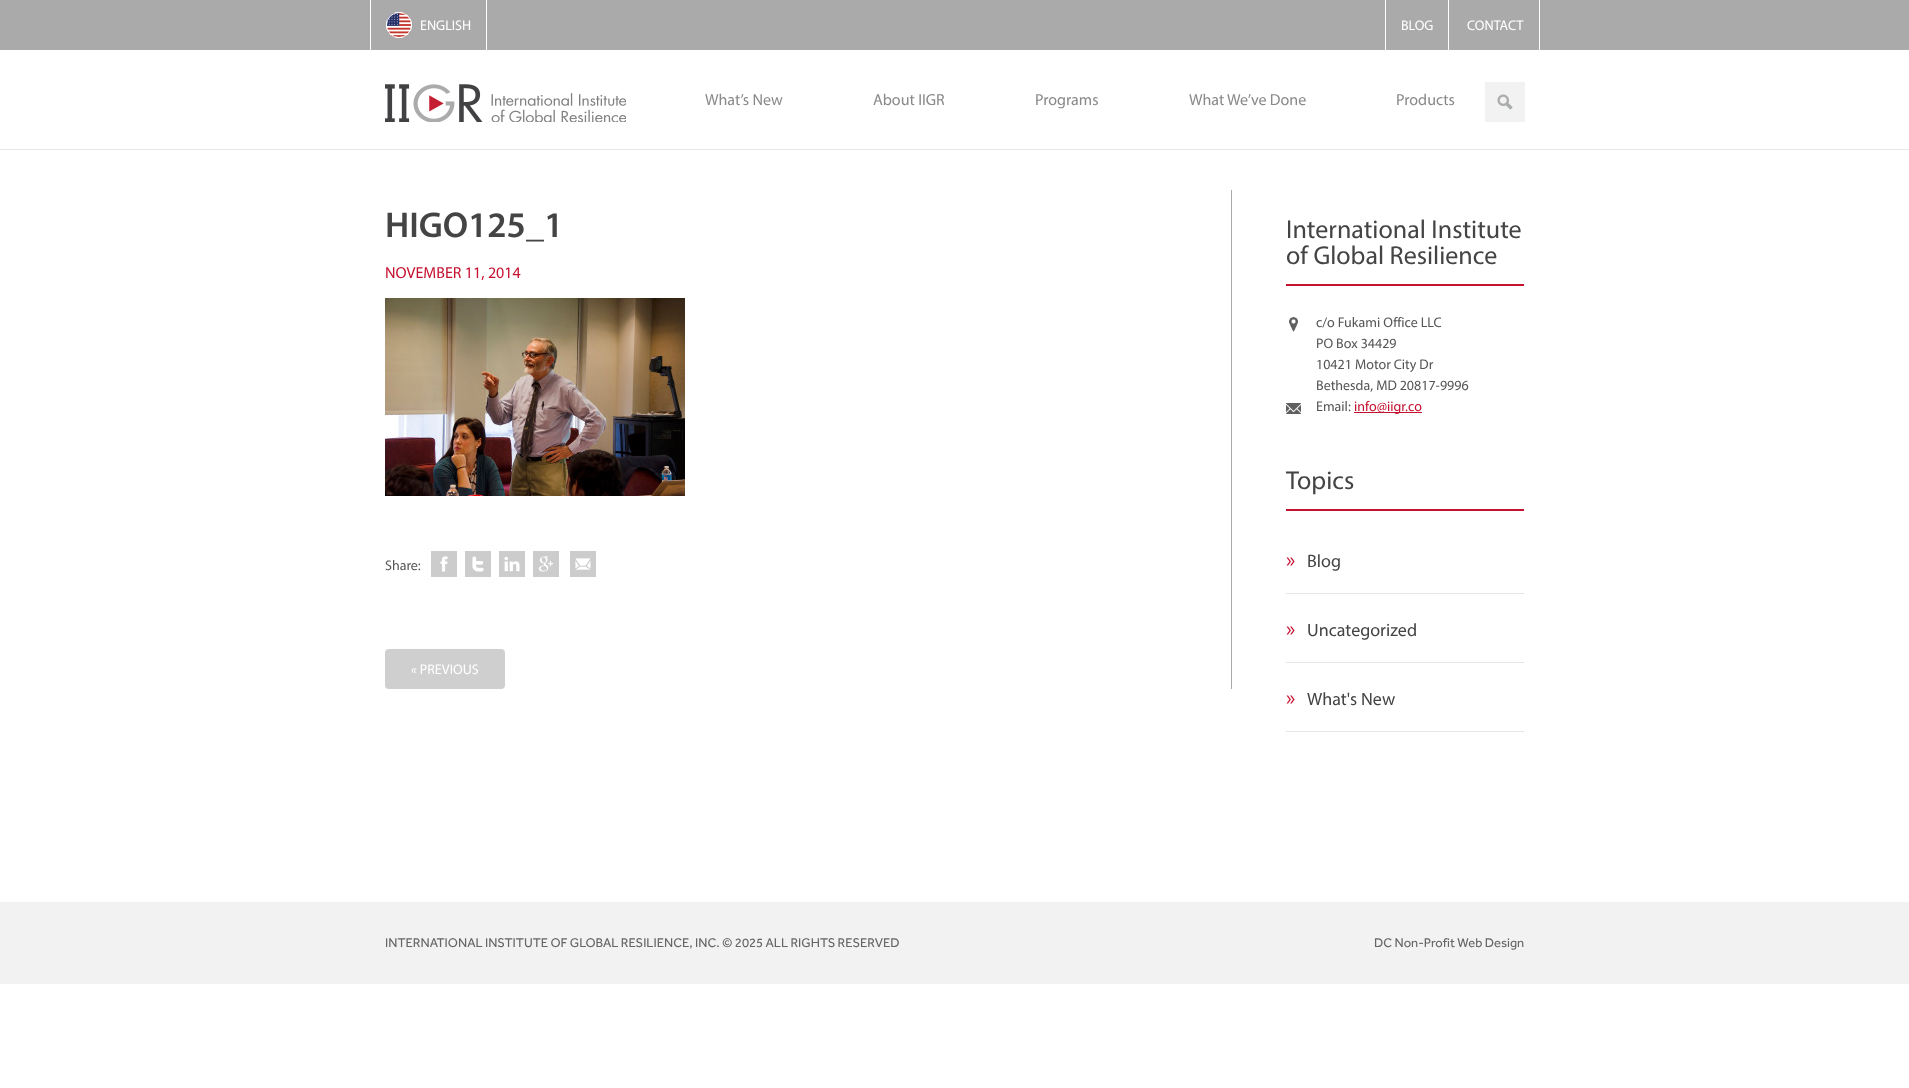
(async () => {
  const canvas = document.querySelector("canvas");
  canvas.width = 1909;
  canvas.height = 1088;
  const ctx = canvas.getContext("2d");
  ctx.miterLimit = 4;
  ctx.fontKerning = "normal";
  async function loadImage(src) {
    const img = new Image();
    img.src = src;
    await img.decode();
    return img;
  }

  ctx.fillStyle = "#ffffff";
  ctx.fillRect(0, 0, 1909, 1088);
  for (const [x, y, w, h, color] of [
    [0, 0, 1909, 50, "#aaaaaa"],
    [486, 0, 1, 50, "#ffffff"],
    [370, 0, 1, 50, "#ffffff"],
  ]) {
    ctx.fillStyle = color;
    ctx.fillRect(x, y, w, h);
  }
  ctx.beginPath();
  ctx.arc(399, 25, 13, 0, Math.PI * 2);
  ctx.fill();
  ctx.drawImage(await loadImage("img/1.png"), 387, 13, 24, 24);
  ctx.beginPath();
  ctx.arc(399, 25, 12.5, 0, Math.PI * 2);
  ctx.strokeStyle = "#ffffff";
  ctx.stroke();
  for (const [x, y, w, h, color] of [
    [1448, 0, 1, 50, "#ffffff"],
    [1385, 0, 1, 50, "#ffffff"],
    [1539, 0, 1, 50, "#ffffff"],
    [0, 149, 1909, 1, "#e7e7e7"],
  ]) {
    ctx.fillStyle = color;
    ctx.fillRect(x, y, w, h);
  }
  ctx.drawImage(await loadImage("img/2.png"), 385, 84, 241, 38);
  ctx.fillStyle = "#f2f2f2";
  ctx.fillRect(1485, 82, 40, 40);
  ctx.drawImage(await loadImage("img/3.png"), 1497, 94, 16, 16);
  ctx.fillStyle = "#aaaaaa";
  ctx.fillRect(1231, 190, 1, 499);
  ctx.drawImage(await loadImage("img/4.png"), 385, 298, 300, 198);
  ctx.drawImage(await loadImage("img/5.png"), 431, 551, 26, 26);
  ctx.drawImage(await loadImage("img/6.png"), 465, 551, 26, 26);
  ctx.drawImage(await loadImage("img/7.png"), 499, 551, 26, 26);
  ctx.drawImage(await loadImage("img/8.png"), 533, 551, 26, 26);
  ctx.drawImage(await loadImage("img/9.png"), 570, 551, 26, 26);
  ctx.fillStyle = "#cfcfcf";
  ctx.beginPath();
  ctx.roundRect(385, 649, 120, 40, 4);
  ctx.fill();
  ctx.fillStyle = "#c51230";
  ctx.fillRect(1286, 284, 238, 2);
  ctx.drawImage(await loadImage("img/10.png"), 1289, 317, 9, 15);
  ctx.drawImage(await loadImage("img/11.png"), 1286, 403, 15, 11);
  for (const [x, y, w, h, color] of [
    [1354, 412, 68, 1, "#c51230"],
    [1286, 509, 238, 2, "#c51230"],
    [1286, 593, 238, 1, "#e6e6e6"],
    [1286, 662, 238, 1, "#e6e6e6"],
    [1286, 731, 238, 1, "#e6e6e6"],
    [0, 902, 1909, 82, "#f2f2f2"],
  ]) {
    ctx.fillStyle = color;
    ctx.fillRect(x, y, w, h);
  }
  ctx.font = "14px Myriad";
  ctx.fillStyle = "#ffffff";
  for (const [text, x, y] of [
    ["ENGLISH", 420, 30],
    ["BLOG", 1401, 30],
    ["CONTACT", 1467, 30],
  ]) {
    ctx.fillText(text, x, y);
  }
  ctx.font = "16px Myriad";
  ctx.fillStyle = "#898989";
  for (const [text, x, y] of [
    ["What’s New", 705, 105],
    ["About IIGR", 873, 105],
    ["Programs", 1035, 105],
    ["What We’ve Done", 1189, 105],
    ["Products", 1396, 105],
  ]) {
    ctx.fillText(text, x, y);
  }
  ctx.font = "600 36px Myriad";
  ctx.fillStyle = "#444444";
  ctx.fillText("HIGO125_1", 385, 237);
  ctx.font = "16px Myriad";
  ctx.fillStyle = "#c51230";
  ctx.fillText("NOVEMBER 11, 2014", 385, 278);
  ctx.font = "14px Myriad";
  ctx.fillStyle = "#555555";
  ctx.fillText("Share:", 385, 570);
  ctx.fillStyle = "#ffffff";
  ctx.fillText("« PREVIOUS", 411, 674);
  ctx.font = "26px Myriad";
  ctx.fillStyle = "#444444";
  ctx.fillText("International Institute", 1286, 238);
  ctx.fillText("of Global Resilience", 1286, 264);
  ctx.font = "14px Myriad";
  ctx.fillStyle = "#555555";
  for (const [text, x, y] of [
    ["c/o Fukami Office LLC", 1316, 327],
    ["PO Box 34429", 1316, 348],
    ["10421 Motor City Dr", 1316, 369],
    ["Bethesda, MD 20817-9996", 1316, 390],
    ["Email:", 1316, 411],
  ]) {
    ctx.fillText(text, x, y);
  }
  ctx.fillStyle = "#c51230";
  ctx.fillText("info@iigr.co", 1354, 411);
  ctx.font = "26px Myriad";
  ctx.fillStyle = "#444444";
  ctx.fillText("Topics", 1286, 489);
  ctx.font = "22px Myriad";
  ctx.fillStyle = "#c51230";
  ctx.fillText("»", 1286, 567);
  ctx.font = "18px Myriad";
  ctx.fillStyle = "#444444";
  ctx.fillText("Blog", 1307, 567);
  ctx.font = "22px Myriad";
  ctx.fillStyle = "#c51230";
  ctx.fillText("»", 1286, 636);
  ctx.font = "18px Myriad";
  ctx.fillStyle = "#444444";
  ctx.fillText("Uncategorized", 1307, 636);
  ctx.font = "22px Myriad";
  ctx.fillStyle = "#c51230";
  ctx.fillText("»", 1286, 705);
  ctx.font = "18px Myriad";
  ctx.fillStyle = "#444444";
  ctx.fillText("What's New", 1307, 705);
  ctx.font = "13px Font";
  ctx.fillStyle = "#666666";
  ctx.fillText("INTERNATIONAL INSTITUTE OF GLOBAL RESILIENCE, INC. © 2025 ALL RIGHTS RESERVED", 385, 947);
  ctx.fillText("DC Non-Profit Web Design", 1374, 947);
})();
